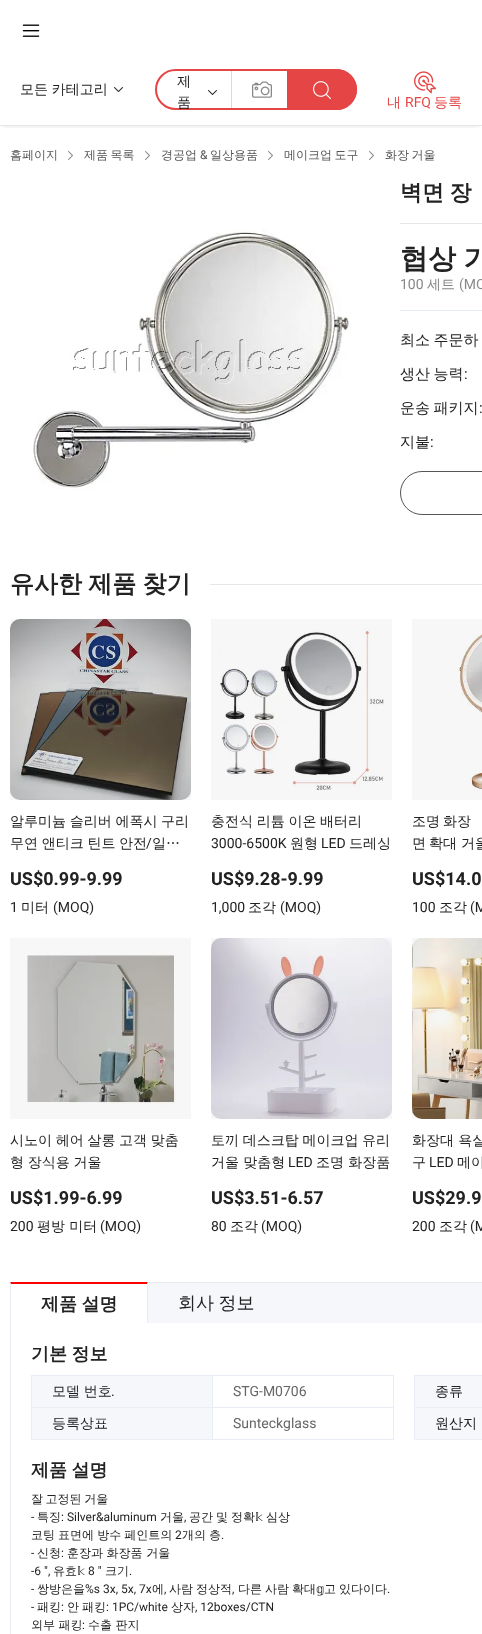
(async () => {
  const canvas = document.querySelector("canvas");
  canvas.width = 482;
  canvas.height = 1634;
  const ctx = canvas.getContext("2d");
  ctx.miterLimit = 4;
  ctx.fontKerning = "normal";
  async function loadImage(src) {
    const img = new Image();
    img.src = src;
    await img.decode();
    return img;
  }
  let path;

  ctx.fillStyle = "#ffffff";
  ctx.fillRect(0, 0, 482, 1634);
  ctx.save();
  ctx.beginPath();
  ctx.rect(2, 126, 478, 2);
  ctx.clip();
  ctx.fillStyle = "rgba(0, 0, 0, 0.12)";
  ctx.filter = "blur(2.5px)";
  ctx.beginPath();
  ctx.rect(3, 6, 476, 120);
  ctx.fill();
  ctx.filter = "none";
  ctx.restore();
  ctx.drawImage(await loadImage("img/1.png"), 22, 24, 18, 13);
  ctx.drawImage(await loadImage("img/2.png"), 114, 87, 9, 5);
  ctx.beginPath();
  ctx.roundRect(156, 70, 200, 39, 19.5);
  ctx.strokeStyle = "#e64545";
  ctx.lineWidth = 2;
  ctx.stroke();
  ctx.fillStyle = "#dadada";
  ctx.fillRect(231, 71, 1, 37);
  ctx.drawImage(await loadImage("img/2.png"), 208, 90, 9, 5);
  ctx.drawImage(await loadImage("img/3.png"), 252, 81, 20, 17);
  ctx.fillStyle = "#e64545";
  ctx.beginPath();
  ctx.roundRect(287, 69, 70, 41, [0, 20.5, 20.5, 0]);
  ctx.fill();
  ctx.drawImage(await loadImage("img/4.png"), 313, 81, 18, 19);
  ctx.drawImage(await loadImage("img/5.png"), 414, 71, 22, 23);
  ctx.fillStyle = "#e6e7eb";
  ctx.fillRect(0, 125, 482, 1);
  ctx.drawImage(await loadImage("img/6.png"), 68, 151, 5, 9);
  ctx.drawImage(await loadImage("img/6.png"), 145, 151, 5, 9);
  ctx.drawImage(await loadImage("img/6.png"), 268, 151, 5, 9);
  ctx.drawImage(await loadImage("img/6.png"), 369, 151, 5, 9);
  ctx.drawImage(await loadImage("img/7.png"), 33, 229, 316, 260);
  ctx.fillStyle = "#e6e6e6";
  ctx.fillRect(400, 223, 82, 1);
  ctx.fillStyle = "#e6ecf2";
  ctx.fillRect(400, 310, 82, 1);
  ctx.beginPath();
  ctx.roundRect(400.5, 471.5, 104, 43, 21.5);
  ctx.strokeStyle = "#555555";
  ctx.lineWidth = 1;
  ctx.stroke();
  ctx.fillStyle = "#e6e6e6";
  ctx.fillRect(210, 584, 272, 1);
  ctx.drawImage(await loadImage("img/8.png"), 10, 619, 181, 181);
  ctx.fillStyle = "rgba(0, 0, 0, 0.03)";
  ctx.fillRect(10, 619, 181, 181);
  ctx.drawImage(await loadImage("img/9.png"), 219, 628, 166, 162);
  ctx.fillRect(211, 619, 181, 181);
  ctx.drawImage(await loadImage("img/10.png"), 458, 634, 24, 157);
  ctx.fillRect(412, 619, 70, 181);
  ctx.drawImage(await loadImage("img/11.png"), 27, 953, 149, 152);
  ctx.fillRect(10, 938, 181, 181);
  ctx.drawImage(await loadImage("img/12.png"), 211, 938, 181, 181);
  ctx.fillRect(211, 938, 181, 181);
  ctx.drawImage(await loadImage("img/13.png"), 412, 938, 70, 181);
  ctx.fillRect(412, 938, 70, 181);
  ctx.strokeStyle = "#e6ecf2";
  ctx.strokeRect(10.5, 1282.5, 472, 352);
  ctx.fillStyle = "#f5f7fa";
  ctx.fillRect(148, 1283, 334, 40);
  ctx.fillStyle = "#ffffff";
  ctx.fillRect(10, 1282, 138, 41);
  ctx.fillStyle = "#ff0000";
  path = new Path2D("M10 1282H148L147 1284H11Z");
  ctx.fill(path);
  ctx.fillStyle = "#e6ecf2";
  path = new Path2D("M148 1282V1323H147V1284Z");
  ctx.fill(path);
  path = new Path2D("M10 1323V1282L11 1284V1323Z");
  ctx.fill(path);
  for (const [x, y, w, h, color] of [
    [147, 1283, 1, 1, "#e6ecf2"],
    [32, 1376, 180, 31, "#f5f7fa"],
    [31, 1375, 181, 1, "#e9eef4"],
    [31, 1375, 1, 33, "#e9eef4"],
  ]) {
    ctx.fillStyle = color;
    ctx.fillRect(x, y, w, h);
  }
  ctx.strokeStyle = "#e9eef4";
  ctx.strokeRect(212.5, 1375.5, 181, 32);
  for (const [x, y, w, h, color] of [
    [415, 1376, 67, 31, "#f5f7fa"],
    [414, 1375, 68, 1, "#e9eef4"],
    [414, 1375, 1, 33, "#e9eef4"],
    [32, 1408, 180, 31, "#f5f7fa"],
    [31, 1407, 181, 1, "#e9eef4"],
    [31, 1439, 181, 1, "#e9eef4"],
    [31, 1407, 1, 33, "#e9eef4"],
  ]) {
    ctx.fillStyle = color;
    ctx.fillRect(x, y, w, h);
  }
  ctx.strokeRect(212.5, 1407.5, 181, 32);
  for (const [x, y, w, h, color] of [
    [415, 1408, 67, 31, "#f5f7fa"],
    [414, 1407, 68, 1, "#e9eef4"],
    [414, 1439, 68, 1, "#e9eef4"],
    [414, 1407, 1, 33, "#e9eef4"],
  ]) {
    ctx.fillStyle = color;
    ctx.fillRect(x, y, w, h);
  }
  ctx.wordSpacing = "-0.5px";
  ctx.font = "500 14px WenQuanYi Zen Hei";
  ctx.fillStyle = "#222222";
  ctx.fillText("모든 카테고리", 20, 94);
  ctx.wordSpacing = "0px";
  ctx.fillText("제", 177, 86);
  ctx.fillText("품", 177, 107);
  ctx.fillStyle = "#e64545";
  ctx.fillText("내", 387, 107);
  ctx.font = "14px Roboto";
  ctx.fillText("RFQ", 405, 107);
  ctx.font = "500 14px WenQuanYi Zen Hei";
  ctx.fillText("등록", 434, 107);
  ctx.font = "500 12px WenQuanYi Zen Hei";
  ctx.fillStyle = "#555555";
  ctx.fillText("홈페이지", 10, 159);
  ctx.wordSpacing = "-1px";
  ctx.fillText("제품 목록", 84, 159);
  ctx.wordSpacing = "0px";
  ctx.fillText("경공업", 161, 159);
  ctx.font = "12px Roboto";
  ctx.fillText("&", 200, 159);
  ctx.font = "500 12px WenQuanYi Zen Hei";
  ctx.fillText("일상용품", 210, 159);
  ctx.wordSpacing = "-1px";
  ctx.fillText("메이크업 도구", 284, 159);
  ctx.fillText("화장 거울", 385, 159);
  ctx.font = "bold 22px WenQuanYi Zen Hei";
  ctx.fillStyle = "#222222";
  ctx.fillText("벽면 장", 400, 200);
  ctx.font = "bold 28px WenQuanYi Zen Hei";
  ctx.fillText("협상 가", 400, 268);
  ctx.wordSpacing = "0px";
  ctx.font = "14px Roboto";
  ctx.fillStyle = "#888888";
  ctx.fillText("100", 400, 289);
  ctx.font = "500 14px WenQuanYi Zen Hei";
  ctx.fillText("세트", 427, 289);
  ctx.font = "14px Roboto";
  ctx.fillText("(MO", 459, 289);
  ctx.wordSpacing = "-1px";
  ctx.font = "500 15px WenQuanYi Zen Hei";
  ctx.fillStyle = "#222222";
  ctx.fillText("최소 주문하", 400, 345);
  ctx.fillText("생산 능력", 400, 379);
  ctx.wordSpacing = "0px";
  ctx.font = "15px Roboto";
  ctx.fillText(":", 464, 379);
  ctx.wordSpacing = "-1px";
  ctx.font = "500 15px WenQuanYi Zen Hei";
  ctx.fillText("운송 패키지", 400, 413);
  ctx.wordSpacing = "0px";
  ctx.font = "15px Roboto";
  ctx.fillText(":", 479, 413);
  ctx.font = "500 15px WenQuanYi Zen Hei";
  ctx.fillText("지불", 400, 447);
  ctx.font = "15px Roboto";
  ctx.fillText(":", 430, 447);
  ctx.wordSpacing = "-1px";
  ctx.font = "bold 24px WenQuanYi Zen Hei";
  ctx.fillText("유사한 제품 찾기", 10, 592);
  ctx.wordSpacing = "-0.5px";
  ctx.font = "500 14px WenQuanYi Zen Hei";
  ctx.fillText("알루미늄 슬리버 에폭시 구리", 10, 826);
  ctx.fillText("무연 앤티크 틴트 안전", 10, 848);
  ctx.wordSpacing = "0px";
  ctx.font = "14px Roboto";
  ctx.fillText("/", 146, 848);
  ctx.font = "500 14px WenQuanYi Zen Hei";
  ctx.fillText("일…", 152, 848);
  ctx.font = "bold 18px Roboto";
  ctx.fillText("US$0.99-9.99", 10, 885);
  ctx.font = "14px Roboto";
  ctx.fillText("1", 10, 912);
  ctx.font = "500 14px WenQuanYi Zen Hei";
  ctx.fillText("미터", 21, 912);
  ctx.font = "14px Roboto";
  ctx.fillText("(MOQ)", 53, 912);
  ctx.wordSpacing = "-0.5px";
  ctx.font = "500 14px WenQuanYi Zen Hei";
  ctx.fillText("충전식 리튬 이온 배터리", 211, 826);
  ctx.wordSpacing = "0px";
  ctx.font = "14px Roboto";
  ctx.fillText("3000-6500K", 211, 848);
  ctx.font = "500 14px WenQuanYi Zen Hei";
  ctx.fillText("원형", 290, 848);
  ctx.font = "14px Roboto";
  ctx.fillText("LED", 321, 848);
  ctx.font = "500 14px WenQuanYi Zen Hei";
  ctx.fillText("드레싱", 349, 848);
  ctx.font = "bold 18px Roboto";
  ctx.fillText("US$9.28-9.99", 211, 885);
  ctx.font = "14px Roboto";
  ctx.fillText("1,000", 211, 912);
  ctx.font = "500 14px WenQuanYi Zen Hei";
  ctx.fillText("조각", 248, 912);
  ctx.font = "14px Roboto";
  ctx.fillText("(MOQ)", 280, 912);
  ctx.font = "500 14px WenQuanYi Zen Hei";
  for (const [text, x, y] of [
    ["조명", 412, 826],
    ["화장", 443, 826],
    ["면", 412, 848],
    ["확대", 429, 848],
    ["거울", 461, 848],
  ]) {
    ctx.fillText(text, x, y);
  }
  ctx.font = "bold 18px Roboto";
  ctx.fillText("US$14.0", 412, 885);
  ctx.font = "14px Roboto";
  ctx.fillText("100", 412, 912);
  ctx.font = "500 14px WenQuanYi Zen Hei";
  ctx.fillText("조각", 439, 912);
  ctx.font = "14px Roboto";
  ctx.fillText("(M", 470, 912);
  ctx.wordSpacing = "-0.5px";
  ctx.font = "500 14px WenQuanYi Zen Hei";
  ctx.fillText("시노이 헤어 살롱 고객 맞춤", 10, 1145);
  ctx.fillText("형 장식용 거울", 10, 1167);
  ctx.wordSpacing = "0px";
  ctx.font = "bold 18px Roboto";
  ctx.fillText("US$1.99-6.99", 10, 1204);
  ctx.font = "14px Roboto";
  ctx.fillText("200", 10, 1231);
  ctx.font = "500 14px WenQuanYi Zen Hei";
  ctx.fillText("평방 미터", 37, 1231);
  ctx.font = "14px Roboto";
  ctx.fillText("(MOQ)", 100, 1231);
  ctx.wordSpacing = "-0.5px";
  ctx.font = "500 14px WenQuanYi Zen Hei";
  ctx.fillText("토끼 데스크탑 메이크업 유리", 211, 1145);
  ctx.wordSpacing = "0px";
  ctx.fillText("거울 맞춤형", 211, 1167);
  ctx.font = "14px Roboto";
  ctx.fillText("LED", 288, 1167);
  ctx.font = "500 14px WenQuanYi Zen Hei";
  ctx.fillText("조명 화장품", 316, 1167);
  ctx.font = "bold 18px Roboto";
  ctx.fillText("US$3.51-6.57", 211, 1204);
  ctx.font = "14px Roboto";
  ctx.fillText("80", 211, 1231);
  ctx.font = "500 14px WenQuanYi Zen Hei";
  ctx.fillText("조각", 230, 1231);
  ctx.font = "14px Roboto";
  ctx.fillText("(MOQ)", 261, 1231);
  ctx.font = "500 14px WenQuanYi Zen Hei";
  ctx.fillText("화장대 욕실", 412, 1145);
  ctx.fillText("구", 412, 1167);
  ctx.font = "14px Roboto";
  ctx.fillText("LED", 429, 1167);
  ctx.font = "500 14px WenQuanYi Zen Hei";
  ctx.fillText("메이", 457, 1167);
  ctx.font = "bold 18px Roboto";
  ctx.fillText("US$29.9", 412, 1204);
  ctx.font = "14px Roboto";
  ctx.fillText("200", 412, 1231);
  ctx.font = "500 14px WenQuanYi Zen Hei";
  ctx.fillText("조각", 439, 1231);
  ctx.font = "14px Roboto";
  ctx.fillText("(M", 470, 1231);
  ctx.wordSpacing = "-1px";
  ctx.font = "bold 18px WenQuanYi Zen Hei";
  ctx.fillText("제품 설명", 41, 1310);
  ctx.font = "500 18px WenQuanYi Zen Hei";
  ctx.fillText("회사 정보", 178, 1309);
  ctx.font = "bold 18px WenQuanYi Zen Hei";
  ctx.fillText("기본 정보", 31, 1360);
  ctx.wordSpacing = "-0.5px";
  ctx.font = "500 14px WenQuanYi Zen Hei";
  ctx.fillText("모델 번호", 52, 1396);
  ctx.wordSpacing = "0px";
  ctx.font = "14px Roboto";
  ctx.fillText(".", 111, 1396);
  ctx.fillStyle = "#666666";
  ctx.fillText("STG-M0706", 233, 1396);
  ctx.font = "500 14px WenQuanYi Zen Hei";
  ctx.fillStyle = "#222222";
  ctx.fillText("종류", 435, 1396);
  ctx.fillText("등록상표", 52, 1428);
  ctx.font = "14px Roboto";
  ctx.fillStyle = "#666666";
  ctx.fillText("Sunteckglass", 233, 1428);
  ctx.font = "500 14px WenQuanYi Zen Hei";
  ctx.fillStyle = "#222222";
  ctx.fillText("원산지", 435, 1428);
  ctx.wordSpacing = "-1px";
  ctx.font = "bold 18px WenQuanYi Zen Hei";
  ctx.fillText("제품 설명", 31, 1476);
  ctx.font = "500 12px WenQuanYi Zen Hei";
  ctx.fillText("잘 고정된 거울", 31, 1503);
  ctx.wordSpacing = "0px";
  ctx.font = "12px Roboto";
  ctx.fillText("-", 31, 1521);
  ctx.font = "500 12px WenQuanYi Zen Hei";
  ctx.fillText("특징", 37, 1521);
  ctx.font = "12px Roboto";
  ctx.fillText(": Silver&aluminum", 61, 1521);
  ctx.font = "500 12px WenQuanYi Zen Hei";
  for (const [text, x, y] of [
    ["거울", 160, 1521],
    ["공간", 189, 1521],
    ["및", 216, 1521],
    ["정확", 231, 1521],
  ]) {
    ctx.fillText(text, x, y);
  }
  ctx.font = "12px DejaVu Sans";
  ctx.fillText("𝕜", 255, 1521);
  ctx.font = "500 12px WenQuanYi Zen Hei";
  ctx.fillText("심상", 266, 1521);
  ctx.font = "12px Roboto";
  ctx.fillText(",", 184, 1521);
  ctx.wordSpacing = "-0.5px";
  ctx.font = "500 12px WenQuanYi Zen Hei";
  ctx.fillText("코팅 표면에 방수 페인트의", 31, 1539);
  ctx.wordSpacing = "0px";
  ctx.font = "12px Roboto";
  ctx.fillText("2", 175, 1539);
  ctx.wordSpacing = "-0.5px";
  ctx.font = "500 12px WenQuanYi Zen Hei";
  ctx.fillText("개의 층", 182, 1539);
  ctx.wordSpacing = "0px";
  ctx.font = "12px Roboto";
  ctx.fillText(".", 221, 1539);
  ctx.fillText("-", 31, 1557);
  ctx.font = "500 12px WenQuanYi Zen Hei";
  ctx.fillText("신청", 37, 1557);
  ctx.font = "12px Roboto";
  ctx.fillText(":", 61, 1557);
  ctx.font = "500 12px WenQuanYi Zen Hei";
  ctx.fillText("훈장과 화장품 거울", 67, 1557);
  ctx.font = "12px Roboto";
  ctx.fillText("-6 \",", 31, 1575);
  ctx.font = "500 12px WenQuanYi Zen Hei";
  ctx.fillText("유효", 53, 1575);
  ctx.font = "12px DejaVu Sans";
  ctx.fillText("𝕜", 77, 1575);
  ctx.font = "12px Roboto";
  ctx.fillText("8 \"", 88, 1575);
  ctx.font = "500 12px WenQuanYi Zen Hei";
  ctx.fillText("크기", 105, 1575);
  ctx.font = "12px Roboto";
  ctx.fillText(".", 129, 1575);
  ctx.fillText("-", 31, 1593);
  ctx.font = "500 12px WenQuanYi Zen Hei";
  ctx.fillText("쌍방은을", 37, 1593);
  ctx.font = "12px Roboto";
  ctx.fillText("%s 3x, 5x, 7x", 85, 1593);
  ctx.font = "500 12px WenQuanYi Zen Hei";
  for (const [text, x, y] of [
    ["에", 152, 1593],
    ["사람", 169, 1593],
    ["정상적", 196, 1593],
    ["다른", 238, 1593],
    ["사람", 265, 1593],
    ["확대", 292, 1593],
  ]) {
    ctx.fillText(text, x, y);
  }
  ctx.font = "12px DejaVu Sans";
  ctx.fillText("𝕘", 316, 1593);
  ctx.font = "500 12px WenQuanYi Zen Hei";
  ctx.fillText("고", 324, 1593);
  ctx.fillText("있다이다", 339, 1593);
  ctx.font = "12px Roboto";
  for (const [text, x, y] of [
    [",", 164, 1593],
    [",", 232, 1593],
    [".", 387, 1593],
    ["-", 31, 1611],
  ]) {
    ctx.fillText(text, x, y);
  }
  ctx.font = "500 12px WenQuanYi Zen Hei";
  ctx.fillText("패킹", 37, 1611);
  ctx.font = "12px Roboto";
  ctx.fillText(":", 61, 1611);
  ctx.font = "500 12px WenQuanYi Zen Hei";
  ctx.fillText("안", 67, 1611);
  ctx.fillText("패킹", 82, 1611);
  ctx.font = "12px Roboto";
  ctx.fillText(": 1PC/white", 106, 1611);
  ctx.font = "500 12px WenQuanYi Zen Hei";
  ctx.fillText("상자", 171, 1611);
  ctx.font = "12px Roboto";
  ctx.fillText(", 12boxes/CTN", 195, 1611);
  ctx.font = "500 12px WenQuanYi Zen Hei";
  ctx.fillText("외부 패킹", 31, 1629);
  ctx.font = "12px Roboto";
  ctx.fillText(":", 82, 1629);
  ctx.font = "500 12px WenQuanYi Zen Hei";
  ctx.fillText("수출 판지", 88, 1629);
})();
